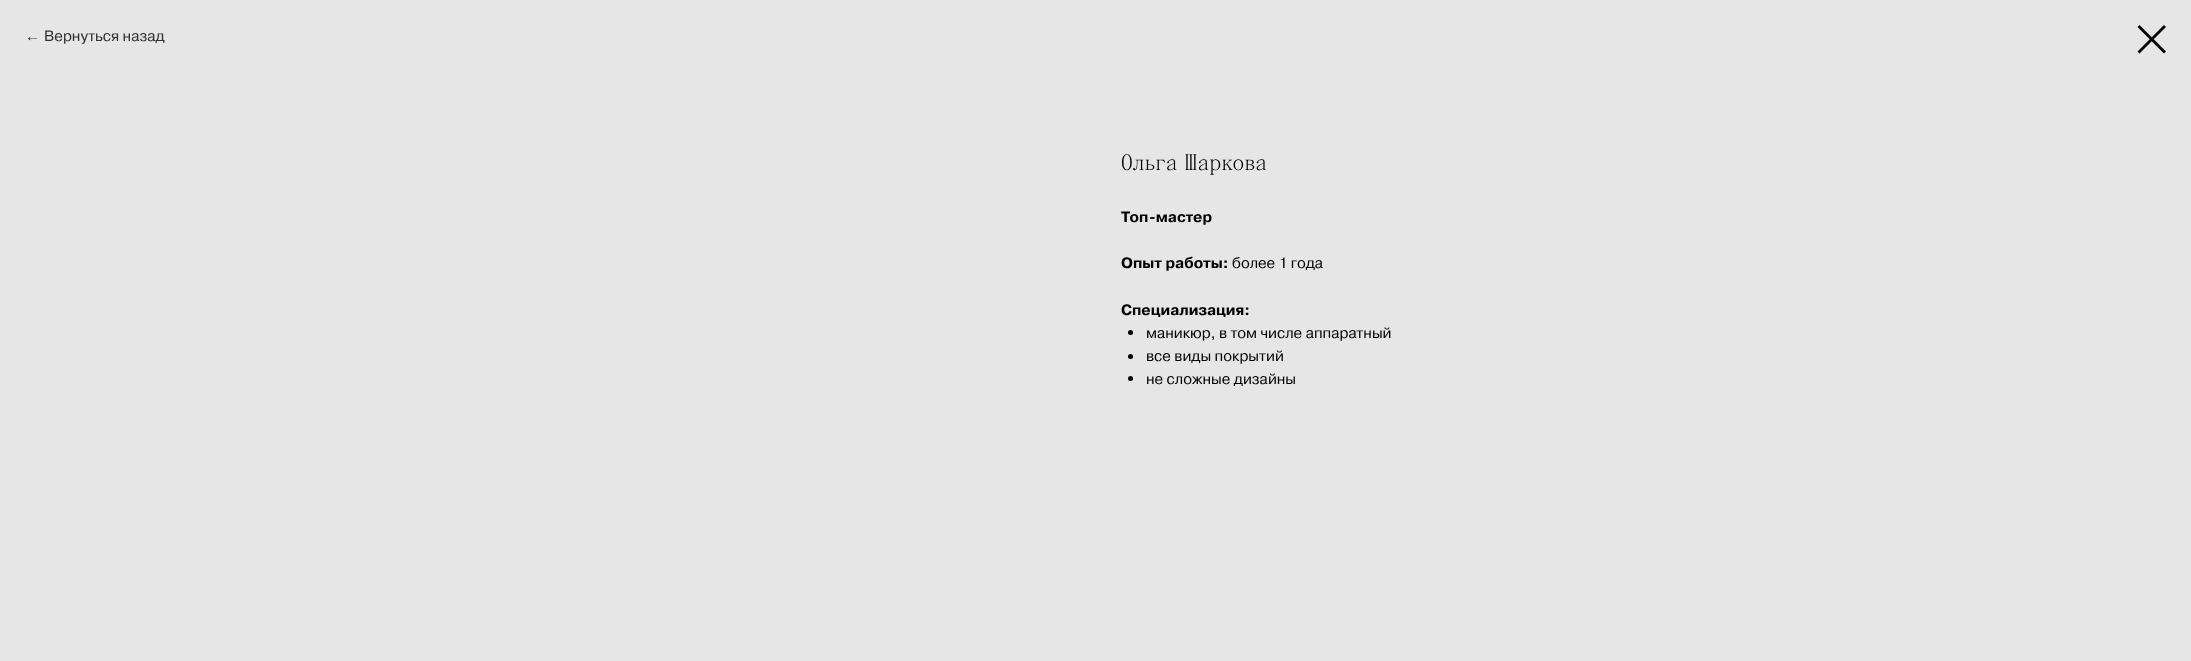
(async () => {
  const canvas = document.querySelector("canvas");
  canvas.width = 2191;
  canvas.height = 661;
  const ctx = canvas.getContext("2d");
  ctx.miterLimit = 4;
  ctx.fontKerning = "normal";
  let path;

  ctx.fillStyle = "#e6e6e6";
  ctx.fillRect(0, 0, 2191, 661);
  ctx.fillStyle = "#000000";
  path = new Path2D("M2137.5 27L2139.5 25L2166 51.5L2164 53.5Z");
  ctx.fill(path, "evenodd");
  path = new Path2D("M2164 25L2166 27L2139.5 53.5L2137.5 51.5Z");
  ctx.fill(path, "evenodd");
  ctx.beginPath();
  ctx.arc(1130.5, 332.5, 2.5, 0, Math.PI * 2);
  ctx.fill();
  ctx.beginPath();
  ctx.arc(1130.5, 356.5, 2.5, 0, Math.PI * 2);
  ctx.fill();
  ctx.beginPath();
  ctx.arc(1130.5, 378.5, 2.5, 0, Math.PI * 2);
  ctx.fill();
  ctx.font = "15px Liberation Sans";
  ctx.fillStyle = "#2e2e2e";
  ctx.fillText("←", 25, 41);
  ctx.font = "15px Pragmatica";
  ctx.fillText("Вернуться назад", 44, 41);
  ctx.font = "22.5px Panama";
  ctx.fillStyle = "#000000";
  ctx.fillText("Ольга Шаркова", 1121, 170);
  ctx.font = "bold 15px Pragmatica";
  ctx.fillText("Топ-мастер", 1121, 222);
  ctx.fillText("Опыт работы:", 1121, 268);
  ctx.font = "15px Pragmatica";
  ctx.fillText("более 1 года", 1232, 268);
  ctx.font = "bold 15px Pragmatica";
  ctx.fillText("Специализация:", 1121, 315);
  ctx.font = "15px Pragmatica";
  for (const [text, x, y] of [
    ["маникюр, в том числе аппаратный", 1146, 338],
    ["все виды покрытий", 1146, 361],
    ["не сложные дизайны", 1146, 384],
  ]) {
    ctx.fillText(text, x, y);
  }
})();
